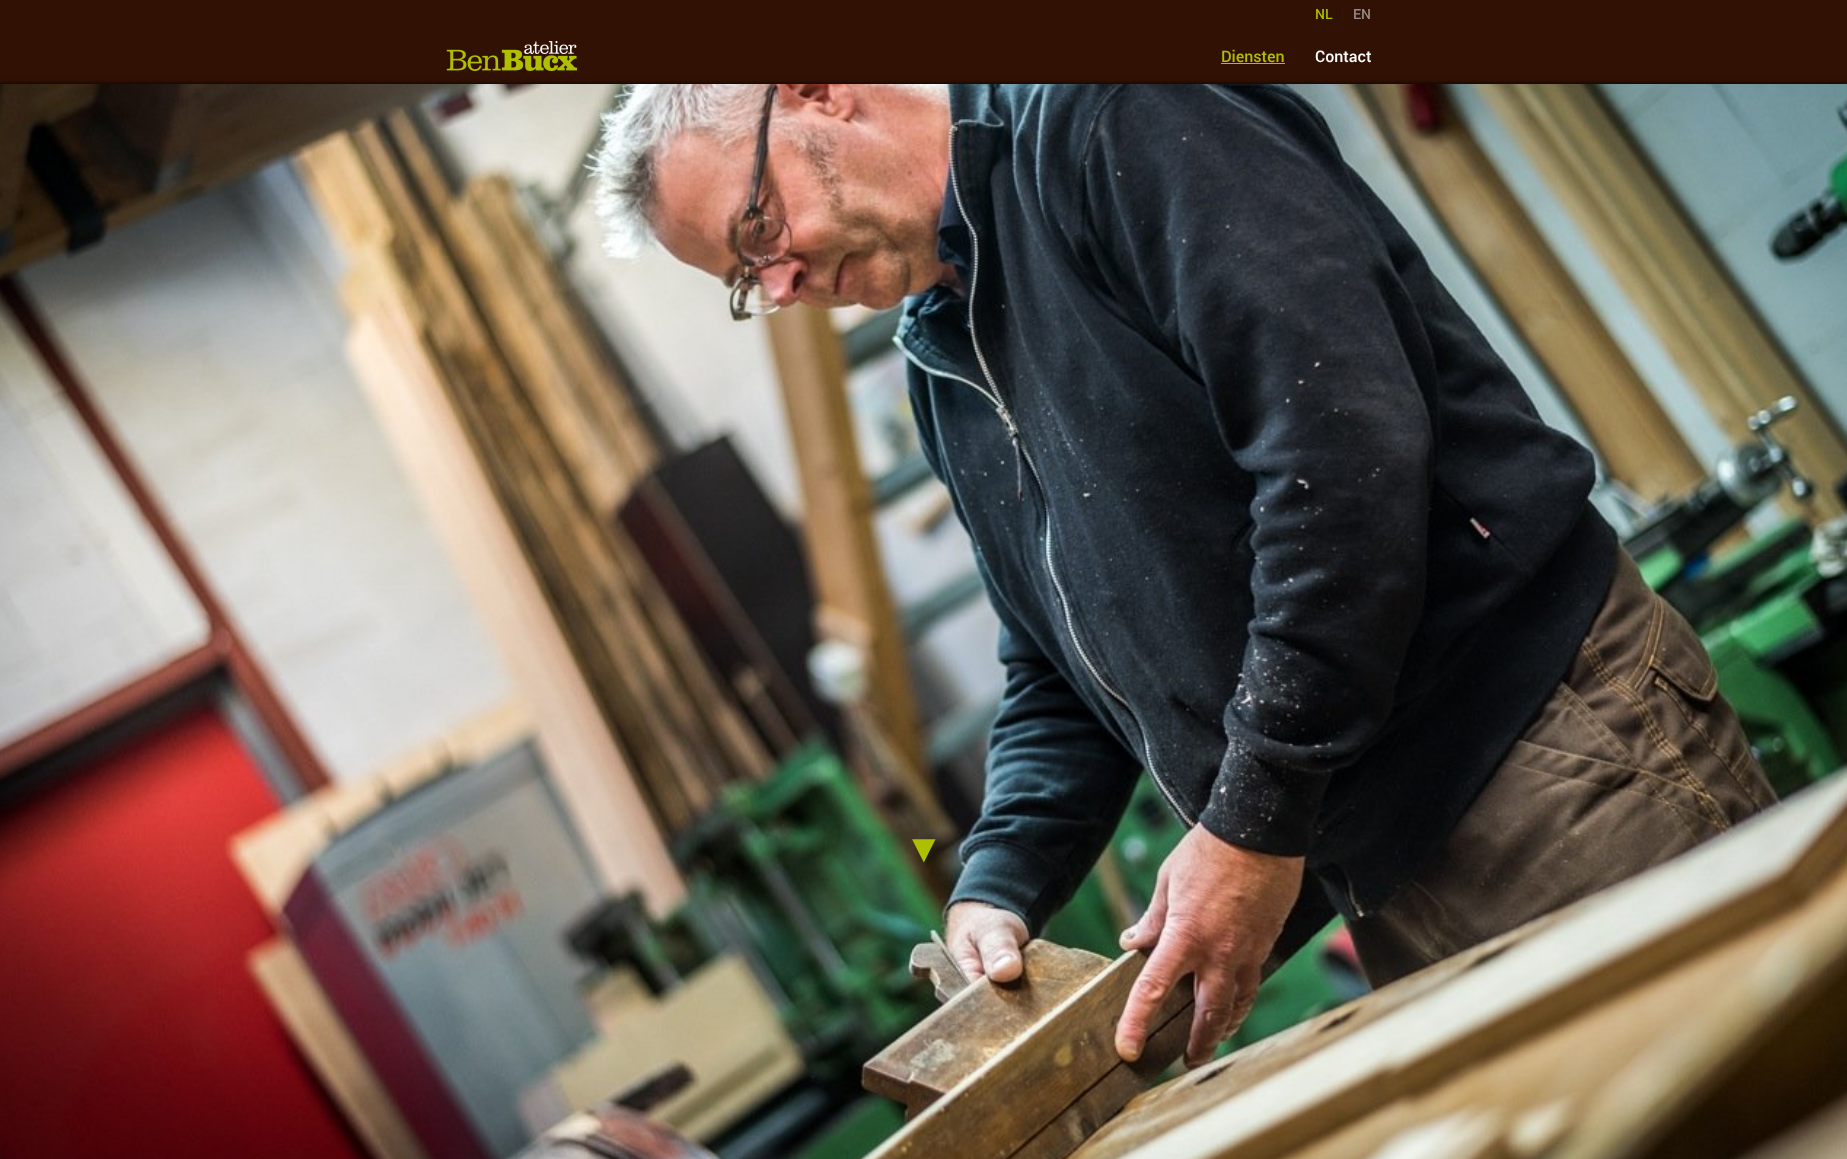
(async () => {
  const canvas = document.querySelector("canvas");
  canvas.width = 1847;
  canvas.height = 1159;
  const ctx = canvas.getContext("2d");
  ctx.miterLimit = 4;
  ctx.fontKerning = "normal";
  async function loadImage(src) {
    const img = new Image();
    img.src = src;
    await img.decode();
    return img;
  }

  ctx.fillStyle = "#311104";
  ctx.fillRect(0, 0, 1847, 1159);
  ctx.fillStyle = "#31180d";
  ctx.fillRect(1342, 7, 1, 14);
  ctx.drawImage(await loadImage("img/1.png"), 446, 41, 131, 30);
  ctx.fillStyle = "#adbf00";
  ctx.fillRect(1221, 63, 64, 1);
  ctx.fillStyle = "#000000";
  ctx.filter = "blur(2.5px)";
  ctx.beginPath();
  ctx.rect(0, 84, 1847, 1075);
  ctx.fill();
  ctx.filter = "none";
  ctx.drawImage(await loadImage("img/2.png"), 0, 84, 1847, 1075);
  ctx.font = "500 14px Roboto";
  ctx.fillStyle = "#adbf00";
  ctx.fillText("NL", 1315, 19);
  ctx.fillStyle = "#988b86";
  ctx.fillText("EN", 1353, 19);
  ctx.font = "500 16px Roboto";
  ctx.fillStyle = "#adbf00";
  ctx.fillText("Diensten", 1221, 62);
  ctx.fillStyle = "#ffffff";
  ctx.fillText("Contact", 1315, 62);
  ctx.font = "40px Liberation Serif";
  ctx.fillStyle = "#adbf00";
  ctx.fillText("▼", 904, 862);
})();
